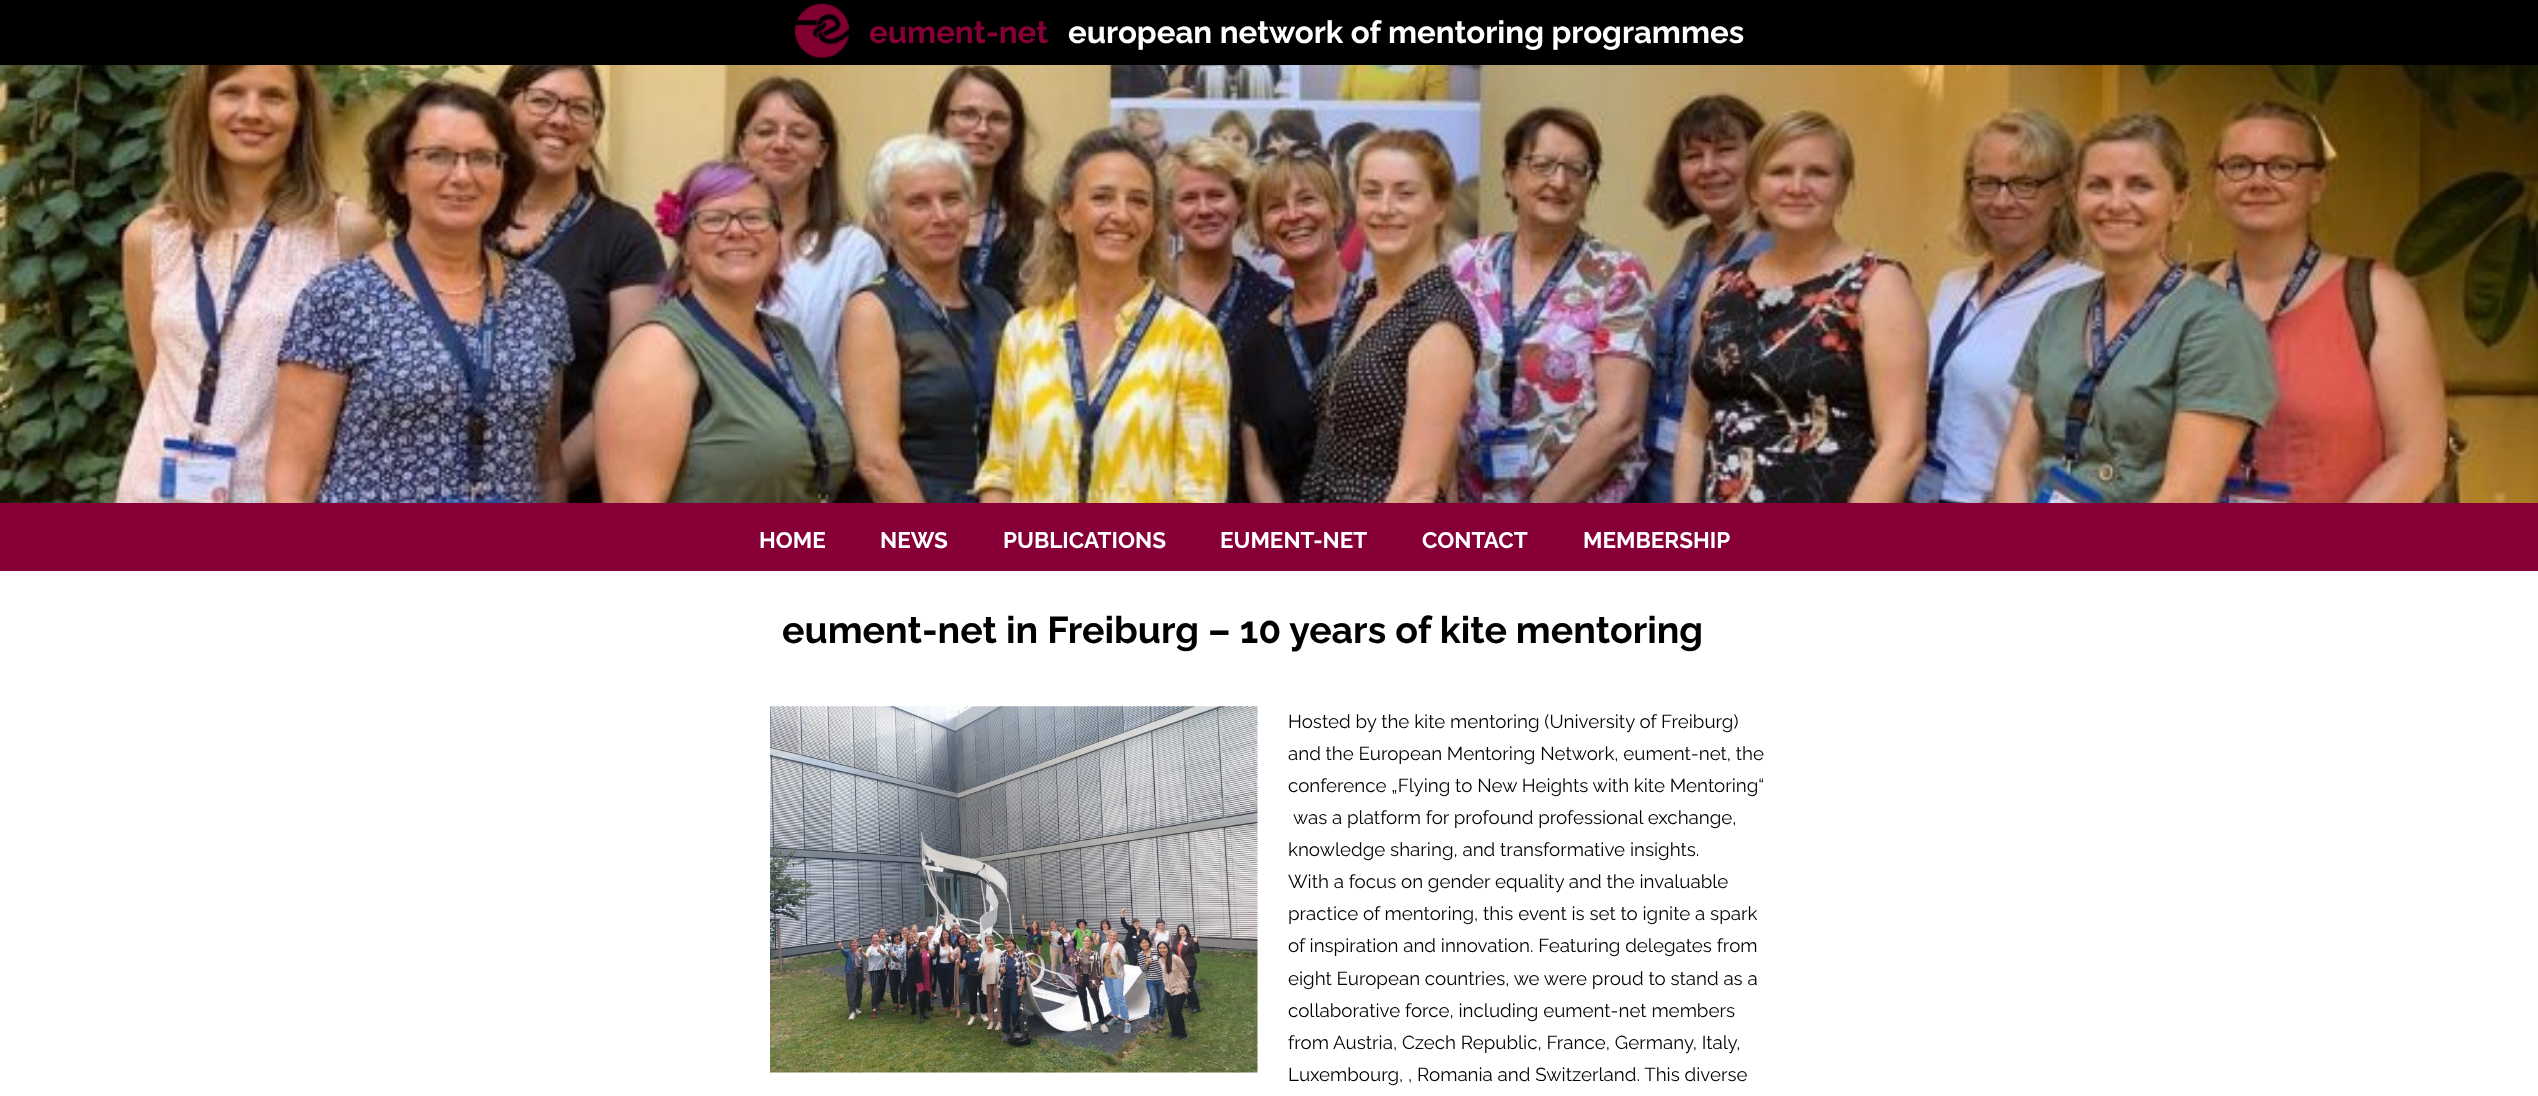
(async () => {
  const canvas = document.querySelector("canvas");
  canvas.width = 2538;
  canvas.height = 1096;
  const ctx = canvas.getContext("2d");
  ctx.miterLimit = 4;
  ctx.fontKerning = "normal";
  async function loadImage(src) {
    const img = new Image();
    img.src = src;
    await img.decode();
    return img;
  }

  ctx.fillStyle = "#ffffff";
  ctx.fillRect(0, 0, 2538, 1096);
  ctx.fillStyle = "#000000";
  ctx.fillRect(0, 0, 2538, 65);
  ctx.drawImage(await loadImage("img/1.png"), 795, 3, 55, 55);
  ctx.drawImage(await loadImage("img/2.png"), 0, 65, 2538, 438);
  ctx.fillStyle = "#860037";
  ctx.fillRect(0, 503, 2538, 68);
  ctx.drawImage(await loadImage("img/3.png"), 770, 706, 488, 367);
  ctx.font = "bold 31.25px Raleway";
  ctx.fillText("eument-net", 869, 43);
  ctx.fillStyle = "#ffffff";
  ctx.fillText("european network of mentoring programmes", 1068, 43);
  ctx.font = "bold 22.5px Raleway";
  for (const [text, x, y] of [
    ["HOME", 759, 548],
    ["NEWS", 880, 548],
    ["PUBLICATIONS", 1003, 548],
    ["EUMENT-NET", 1220, 548],
    ["CONTACT", 1422, 548],
    ["MEMBERSHIP", 1583, 548],
  ]) {
    ctx.fillText(text, x, y);
  }
  ctx.font = "bold 37.5px Raleway";
  ctx.fillStyle = "#000000";
  ctx.fillText("eument-net in Freiburg – 10 years of kite mentoring", 782, 643);
  ctx.font = "18.75px Raleway";
  for (const [text, x, y] of [
    ["Hosted by the kite mentoring (University of Freiburg)", 1288, 728],
    ["and the European Mentoring Network, eument-net, the", 1288, 760],
    ["conference „Flying to New Heights with kite Mentoring“", 1288, 792],
    ["was a platform for profound professional exchange,", 1293, 824],
    ["knowledge sharing, and transformative insights.", 1288, 856],
    ["With a focus on gender equality and the invaluable", 1288, 888],
    ["practice of mentoring, this event is set to ignite a spark", 1288, 920],
    ["of inspiration and innovation. Featuring delegates from", 1288, 952],
    ["eight European countries, we were proud to stand as a", 1288, 985],
    ["collaborative force, including eument-net members", 1288, 1017],
    ["from Austria, Czech Republic, France, Germany, Italy,", 1288, 1049],
    ["Luxembourg, , Romania and Switzerland. This diverse", 1288, 1081],
  ]) {
    ctx.fillText(text, x, y);
  }
})();
